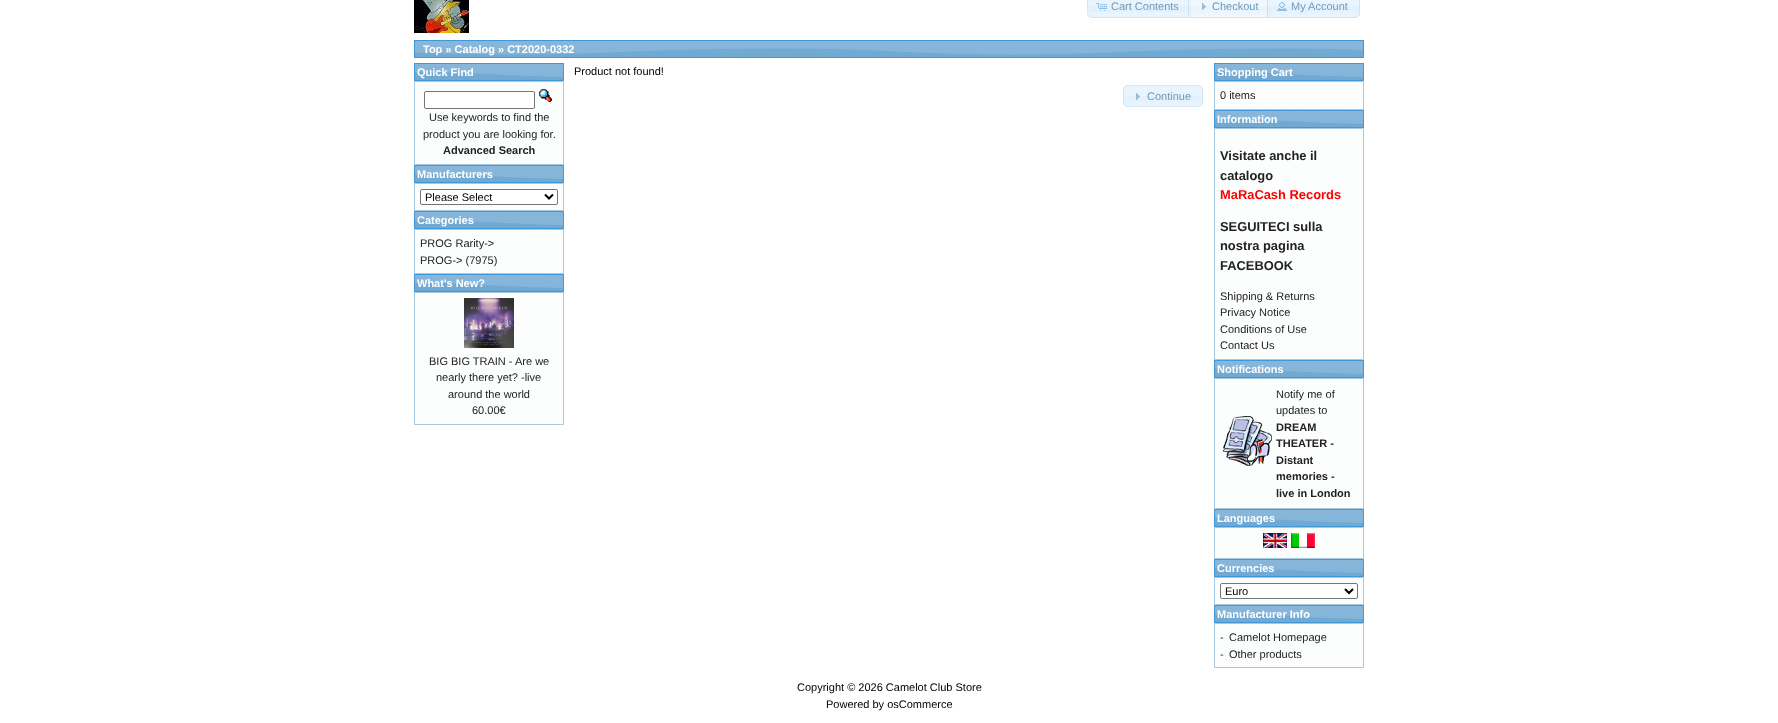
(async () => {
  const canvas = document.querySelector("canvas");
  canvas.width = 1778;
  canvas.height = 723;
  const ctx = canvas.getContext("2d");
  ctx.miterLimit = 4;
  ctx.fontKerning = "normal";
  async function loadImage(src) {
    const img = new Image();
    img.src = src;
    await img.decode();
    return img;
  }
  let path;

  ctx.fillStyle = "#ffffff";
  ctx.fillRect(0, 0, 1778, 723);
  ctx.drawImage(await loadImage("img/1.png"), 414, 0, 55, 33);
  ctx.fillStyle = "#e9f4fd";
  path = new Path2D("M1092-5H1191V18H1092C1089 18 1087 16 1087 13V0C1087-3 1089-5 1092-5Z");
  ctx.fill(path);
  ctx.fillStyle = "#e3f1fc";
  ctx.fillRect(1087, 6, 104, 6);
  path = new Path2D("M1092-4.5H1190.5V17.5H1092C1089.5 17.5 1087.5 15.5 1087.5 13V0C1087.5-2.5 1089.5-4.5 1092-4.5Z");
  ctx.strokeStyle = "#d6e6f2";
  ctx.stroke(path);
  ctx.drawImage(await loadImage("img/2.png"), 1096, 3, 11, 8);
  ctx.drawImage(await loadImage("img/3.png"), 1188, 0, 83, 18);
  ctx.strokeStyle = "rgba(197, 219, 236, 0.7)";
  ctx.strokeRect(1188.5, -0.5, 82, 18);
  ctx.drawImage(await loadImage("img/4.png"), 1202, 3, 4, 7);
  ctx.fillStyle = "rgba(223, 239, 252, 0.7)";
  path = new Path2D("M1267-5H1355C1358-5 1360-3 1360 0V13C1360 16 1358 18 1355 18H1267Z");
  ctx.fill(path);
  ctx.drawImage(await loadImage("img/5.png"), 1267, 0, 93, 18);
  path = new Path2D("M1267.5-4.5H1355C1357.5-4.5 1359.5-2.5 1359.5 0V13C1359.5 15.5 1357.5 17.5 1355 17.5H1267.5Z");
  ctx.stroke(path);
  ctx.drawImage(await loadImage("img/6.png"), 1277, 2, 10, 9);
  ctx.drawImage(await loadImage("img/7.png"), 415, 41, 948, 16);
  ctx.strokeStyle = "#4297d7";
  ctx.strokeRect(414.5, 40.5, 949, 17);
  ctx.drawImage(await loadImage("img/8.png"), 415, 64, 148, 16);
  ctx.strokeRect(414.5, 63.5, 149, 17);
  ctx.fillStyle = "#fcfdfd";
  ctx.beginPath();
  ctx.rect(414.5, 81.5, 149, 83);
  ctx.fill();
  ctx.strokeStyle = "#a6c9e2";
  ctx.stroke();
  ctx.fillStyle = "#ffffff";
  ctx.beginPath();
  ctx.roundRect(424.5, 91.5, 110, 17, 1.5);
  ctx.fill();
  ctx.strokeStyle = "#767676";
  ctx.stroke();
  ctx.drawImage(await loadImage("img/9.png"), 539, 89, 13, 13);
  ctx.drawImage(await loadImage("img/8.png"), 415, 166, 148, 16);
  ctx.strokeStyle = "#4297d7";
  ctx.strokeRect(414.5, 165.5, 149, 17);
  ctx.fillStyle = "#fcfdfd";
  ctx.beginPath();
  ctx.rect(414.5, 183.5, 149, 27);
  ctx.fill();
  ctx.strokeStyle = "#a6c9e2";
  ctx.stroke();
  ctx.fillStyle = "#ffffff";
  ctx.beginPath();
  ctx.roundRect(420.5, 189.5, 137, 15, 1.5);
  ctx.fill();
  ctx.strokeStyle = "#767676";
  ctx.stroke();
  path = new Path2D("M545 194.5L549 198.5L553 194.5");
  ctx.strokeStyle = "#000000";
  ctx.lineWidth = 2;
  ctx.stroke(path);
  ctx.drawImage(await loadImage("img/8.png"), 415, 212, 148, 16);
  ctx.strokeStyle = "#4297d7";
  ctx.lineWidth = 1;
  ctx.strokeRect(414.5, 211.5, 149, 17);
  ctx.fillStyle = "#fcfdfd";
  ctx.beginPath();
  ctx.rect(414.5, 229.5, 149, 44);
  ctx.fill();
  ctx.strokeStyle = "#a6c9e2";
  ctx.stroke();
  ctx.drawImage(await loadImage("img/8.png"), 415, 275, 148, 16);
  ctx.strokeStyle = "#4297d7";
  ctx.strokeRect(414.5, 274.5, 149, 17);
  ctx.beginPath();
  ctx.rect(414.5, 292.5, 149, 132);
  ctx.fill();
  ctx.strokeStyle = "#a6c9e2";
  ctx.stroke();
  ctx.drawImage(await loadImage("img/10.png"), 464, 298, 50, 50);
  ctx.fillStyle = "#e9f4fd";
  ctx.beginPath();
  ctx.roundRect(1123, 85, 80, 22, 5);
  ctx.fill();
  ctx.drawImage(await loadImage("img/11.png"), 1123, 96, 80, 10);
  ctx.beginPath();
  ctx.roundRect(1123.5, 85.5, 79, 21, 4.5);
  ctx.strokeStyle = "#d6e6f2";
  ctx.stroke();
  ctx.drawImage(await loadImage("img/12.png"), 1136, 93, 4, 7);
  ctx.drawImage(await loadImage("img/8.png"), 1215, 64, 148, 16);
  ctx.strokeStyle = "#4297d7";
  ctx.strokeRect(1214.5, 63.5, 149, 17);
  ctx.fillStyle = "#fcfdfd";
  ctx.beginPath();
  ctx.rect(1214.5, 81.5, 149, 28);
  ctx.fill();
  ctx.strokeStyle = "#a6c9e2";
  ctx.stroke();
  ctx.drawImage(await loadImage("img/8.png"), 1215, 111, 148, 16);
  ctx.strokeStyle = "#4297d7";
  ctx.strokeRect(1214.5, 110.5, 149, 17);
  ctx.beginPath();
  ctx.rect(1214.5, 128.5, 149, 231);
  ctx.fill();
  ctx.strokeStyle = "#a6c9e2";
  ctx.stroke();
  ctx.drawImage(await loadImage("img/8.png"), 1215, 361, 148, 16);
  ctx.strokeStyle = "#4297d7";
  ctx.strokeRect(1214.5, 360.5, 149, 17);
  ctx.beginPath();
  ctx.rect(1214.5, 378.5, 149, 130);
  ctx.fill();
  ctx.strokeStyle = "#a6c9e2";
  ctx.stroke();
  ctx.drawImage(await loadImage("img/13.png"), 1223, 416, 49, 50);
  ctx.drawImage(await loadImage("img/8.png"), 1215, 510, 148, 16);
  ctx.strokeStyle = "#4297d7";
  ctx.strokeRect(1214.5, 509.5, 149, 17);
  ctx.beginPath();
  ctx.rect(1214.5, 527.5, 149, 31);
  ctx.fill();
  ctx.strokeStyle = "#a6c9e2";
  ctx.stroke();
  ctx.drawImage(await loadImage("img/14.png"), 1263, 533, 24, 15);
  ctx.drawImage(await loadImage("img/15.png"), 1291, 533, 24, 15);
  ctx.drawImage(await loadImage("img/8.png"), 1215, 560, 148, 16);
  ctx.strokeStyle = "#4297d7";
  ctx.strokeRect(1214.5, 559.5, 149, 17);
  ctx.beginPath();
  ctx.rect(1214.5, 577.5, 149, 27);
  ctx.fill();
  ctx.strokeStyle = "#a6c9e2";
  ctx.stroke();
  ctx.fillStyle = "#ffffff";
  ctx.beginPath();
  ctx.roundRect(1220.5, 583.5, 137, 15, 1.5);
  ctx.fill();
  ctx.strokeStyle = "#767676";
  ctx.stroke();
  path = new Path2D("M1345 589L1349 593L1353 589");
  ctx.strokeStyle = "#000000";
  ctx.lineWidth = 2;
  ctx.stroke(path);
  ctx.drawImage(await loadImage("img/8.png"), 1215, 606, 148, 16);
  ctx.strokeStyle = "#4297d7";
  ctx.lineWidth = 1;
  ctx.strokeRect(1214.5, 605.5, 149, 17);
  ctx.fillStyle = "#fcfdfd";
  ctx.beginPath();
  ctx.rect(1214.5, 623.5, 149, 44);
  ctx.fill();
  ctx.strokeStyle = "#a6c9e2";
  ctx.stroke();
  ctx.font = "11px Liberation Sans";
  ctx.fillStyle = "#6d9abb";
  for (const [text, x, y] of [
    ["Cart Contents", 1111, 10],
    ["Checkout", 1212, 10],
    ["My Account", 1291, 10],
  ]) {
    ctx.fillText(text, x, y);
  }
  ctx.font = "bold 11px Liberation Sans";
  ctx.fillStyle = "#ffffff";
  ctx.fillText("Top » Catalog » CT2020-0332", 423, 53);
  ctx.fillText("Quick Find", 417, 76);
  ctx.font = "11px Liberation Sans";
  ctx.fillStyle = "#222222";
  ctx.fillText("Use keywords to find the", 429, 121);
  ctx.fillText("product you are looking for.", 423, 138);
  ctx.font = "bold 11px Liberation Sans";
  ctx.fillText("Advanced Search", 443, 154);
  ctx.fillStyle = "#ffffff";
  ctx.fillText("Manufacturers", 417, 178);
  ctx.font = "11px Liberation Sans";
  ctx.fillStyle = "#000000";
  ctx.fillText("Please Select", 425, 201);
  ctx.font = "bold 11px Liberation Sans";
  ctx.fillStyle = "#ffffff";
  ctx.fillText("Categories", 417, 224);
  ctx.font = "11px Liberation Sans";
  ctx.fillStyle = "#222222";
  ctx.fillText("PROG Rarity->", 420, 247);
  ctx.fillText("PROG-> (7975)", 420, 264);
  ctx.font = "bold 11px Liberation Sans";
  ctx.fillStyle = "#ffffff";
  ctx.fillText("What's New?", 417, 287);
  ctx.font = "11px Liberation Sans";
  ctx.fillStyle = "#222222";
  for (const [text, x, y] of [
    ["BIG BIG TRAIN - Are we", 429, 365],
    ["nearly there yet? -live", 436, 381],
    ["around the world", 448, 398],
    ["60.00€", 472, 414],
  ]) {
    ctx.fillText(text, x, y);
  }
  ctx.fillStyle = "#000000";
  ctx.fillText("Product not found!", 574, 75);
  ctx.fillStyle = "#6d9abb";
  ctx.fillText("Continue", 1147, 100);
  ctx.font = "bold 11px Liberation Sans";
  ctx.fillStyle = "#ffffff";
  ctx.fillText("Shopping Cart", 1217, 76);
  ctx.font = "11px Liberation Sans";
  ctx.fillStyle = "#222222";
  ctx.fillText("0 items", 1220, 99);
  ctx.font = "bold 11px Liberation Sans";
  ctx.fillStyle = "#ffffff";
  ctx.fillText("Information", 1217, 123);
  ctx.font = "bold 12.9px Liberation Sans";
  ctx.fillStyle = "#222222";
  ctx.fillText("Visitate anche il", 1220, 160);
  ctx.fillText("catalogo", 1220, 180);
  ctx.fillStyle = "#ff0000";
  ctx.fillText("MaRaCash Records", 1220, 199);
  ctx.fillStyle = "#222222";
  for (const [text, x, y] of [
    ["SEGUITECI sulla", 1220, 231],
    ["nostra pagina", 1220, 250],
    ["FACEBOOK", 1220, 270],
  ]) {
    ctx.fillText(text, x, y);
  }
  ctx.font = "11px Liberation Sans";
  for (const [text, x, y] of [
    ["Shipping & Returns", 1220, 300],
    ["Privacy Notice", 1220, 316],
    ["Conditions of Use", 1220, 333],
    ["Contact Us", 1220, 349],
  ]) {
    ctx.fillText(text, x, y);
  }
  ctx.font = "bold 11px Liberation Sans";
  ctx.fillStyle = "#ffffff";
  ctx.fillText("Notifications", 1217, 373);
  ctx.font = "11px Liberation Sans";
  ctx.fillStyle = "#222222";
  ctx.fillText("Notify me of", 1276, 398);
  ctx.fillText("updates to", 1276, 414);
  ctx.font = "bold 11px Liberation Sans";
  for (const [text, x, y] of [
    ["DREAM", 1276, 431],
    ["THEATER -", 1276, 447],
    ["Distant", 1276, 464],
    ["memories -", 1276, 480],
    ["live in London", 1276, 497],
  ]) {
    ctx.fillText(text, x, y);
  }
  ctx.fillStyle = "#ffffff";
  ctx.fillText("Languages", 1217, 522);
  ctx.fillText("Currencies", 1217, 572);
  ctx.font = "11px Liberation Sans";
  ctx.fillStyle = "#000000";
  ctx.fillText("Euro", 1225, 595);
  ctx.font = "bold 11px Liberation Sans";
  ctx.fillStyle = "#ffffff";
  ctx.fillText("Manufacturer Info", 1217, 618);
  ctx.font = "11px Liberation Sans";
  ctx.fillStyle = "#222222";
  for (const [text, x, y] of [
    ["-", 1220, 641],
    ["Camelot Homepage", 1229, 641],
    ["-", 1220, 658],
    ["Other products", 1229, 658],
  ]) {
    ctx.fillText(text, x, y);
  }
  ctx.fillStyle = "#000000";
  ctx.fillText("Copyright © 2026 Camelot Club Store", 797, 691);
  ctx.fillText("Powered by osCommerce", 826, 708);
})();
